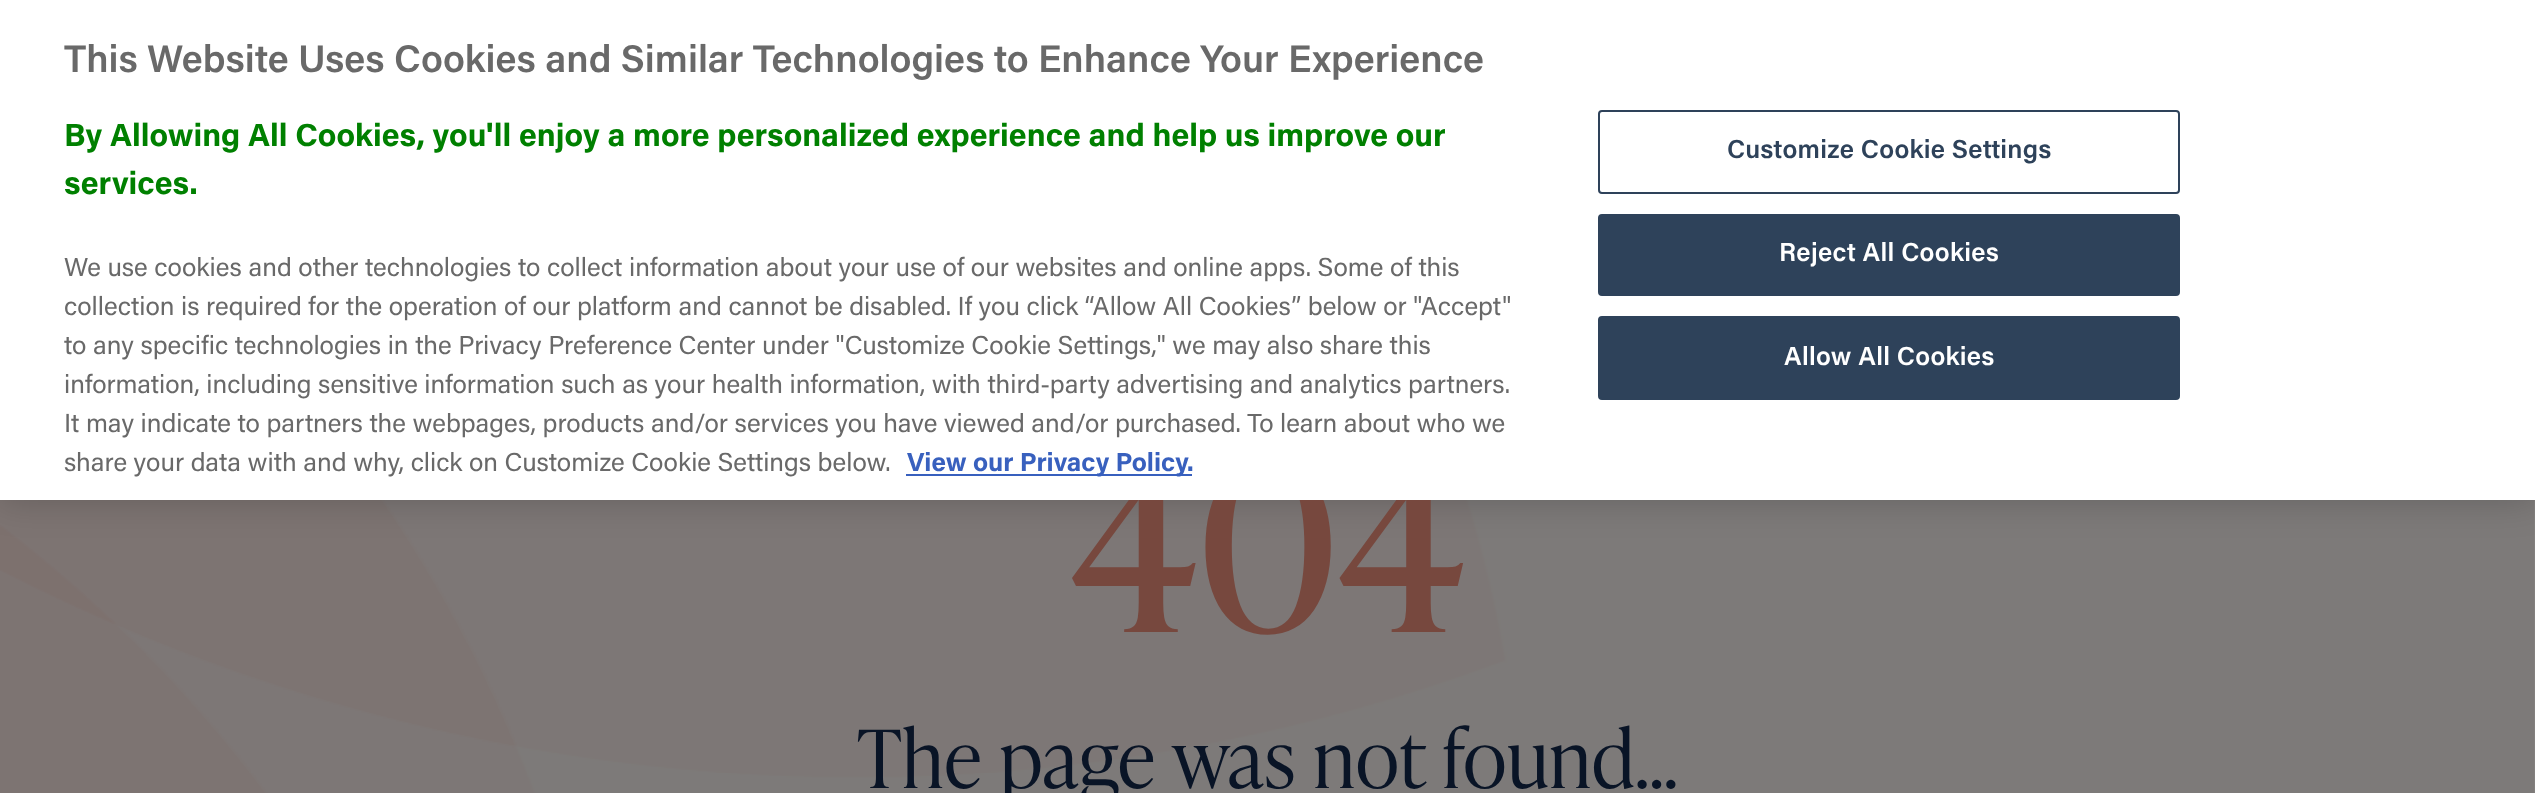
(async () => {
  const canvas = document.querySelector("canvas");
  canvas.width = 2535;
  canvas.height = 793;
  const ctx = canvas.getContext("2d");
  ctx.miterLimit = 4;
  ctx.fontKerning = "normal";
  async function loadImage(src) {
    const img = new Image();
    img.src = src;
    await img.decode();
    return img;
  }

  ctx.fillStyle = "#ffffff";
  ctx.fillRect(0, 0, 2535, 793);
  ctx.drawImage(await loadImage("img/1.png"), 0, 500, 2535, 293);
  ctx.fillStyle = "rgba(0, 0, 0, 0.2)";
  ctx.filter = "blur(18px)";
  ctx.beginPath();
  ctx.rect(0, 0, 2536, 500);
  ctx.fill();
  ctx.filter = "none";
  ctx.font = "235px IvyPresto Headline";
  ctx.fillStyle = "#77483e";
  ctx.fillText("404", 1072, 632);
  ctx.fillStyle = "#ffffff";
  ctx.fillRect(0, 0, 2535, 500);
  ctx.fillStyle = "#2e425a";
  ctx.beginPath();
  ctx.roundRect(1599, 317, 580, 82, 3);
  ctx.fill();
  ctx.strokeStyle = "#2e425a";
  ctx.lineWidth = 2;
  ctx.stroke();
  ctx.letterSpacing = "0.25px";
  ctx.font = "600 26.02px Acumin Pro";
  ctx.fillStyle = "#ffffff";
  ctx.fillText("Allow All Cookies", 1784, 365);
  ctx.fillStyle = "#2e425a";
  ctx.beginPath();
  ctx.roundRect(1599, 215, 580, 80, 3);
  ctx.fill();
  ctx.stroke();
  ctx.fillStyle = "#ffffff";
  ctx.fillText("Reject All Cookies", 1779, 261);
  ctx.beginPath();
  ctx.roundRect(1599, 111, 580, 82, 3);
  ctx.stroke();
  ctx.fillStyle = "#2e425a";
  ctx.fillText("Customize Cookie Settings", 1727, 158);
  ctx.fillStyle = "#3860be";
  ctx.fillRect(906, 474, 286, 2);
  ctx.letterSpacing = "0px";
  ctx.font = "bold 26.02px Acumin Pro";
  ctx.fillText("View our Privacy Policy.", 907, 471);
  ctx.font = "26.02px Acumin Pro";
  ctx.fillStyle = "#696969";
  for (const [text, x, y] of [
    ["share your data with and why, click on Customize Cookie Settings below.", 64, 471],
    ["It may indicate to partners the webpages, products and/or services you have viewed and/or purchased. To learn about who we", 64, 432],
    ["information, including sensitive information such as your health information, with third-party advertising and analytics partners.", 64, 393],
    ["to any specific technologies in the Privacy Preference Center under \"Customize Cookie Settings,\" we may also share this", 64, 354],
    ["collection is required for the operation of our platform and cannot be disabled. If you click “Allow All Cookies” below or \"Accept\"", 64, 315],
    ["We use cookies and other technologies to collect information about your use of our websites and online apps. Some of this", 64, 276],
  ]) {
    ctx.fillText(text, x, y);
  }
  ctx.font = "bold 32px Acumin Pro";
  ctx.fillStyle = "#008000";
  ctx.fillText("services.", 64, 194);
  ctx.fillText("By Allowing All Cookies, you'll enjoy a more personalized experience and help us improve our", 64, 146);
  ctx.font = "600 38.4px Acumin Pro";
  ctx.fillStyle = "#696969";
  ctx.fillText("This Website Uses Cookies and Similar Technologies to Enhance Your Experience", 64, 72);
  ctx.letterSpacing = "1.2px";
  ctx.font = "300 80px IvyPresto Headline";
  ctx.fillStyle = "#091426";
  ctx.fillText("The page was not found...", 857, 788);
})();
